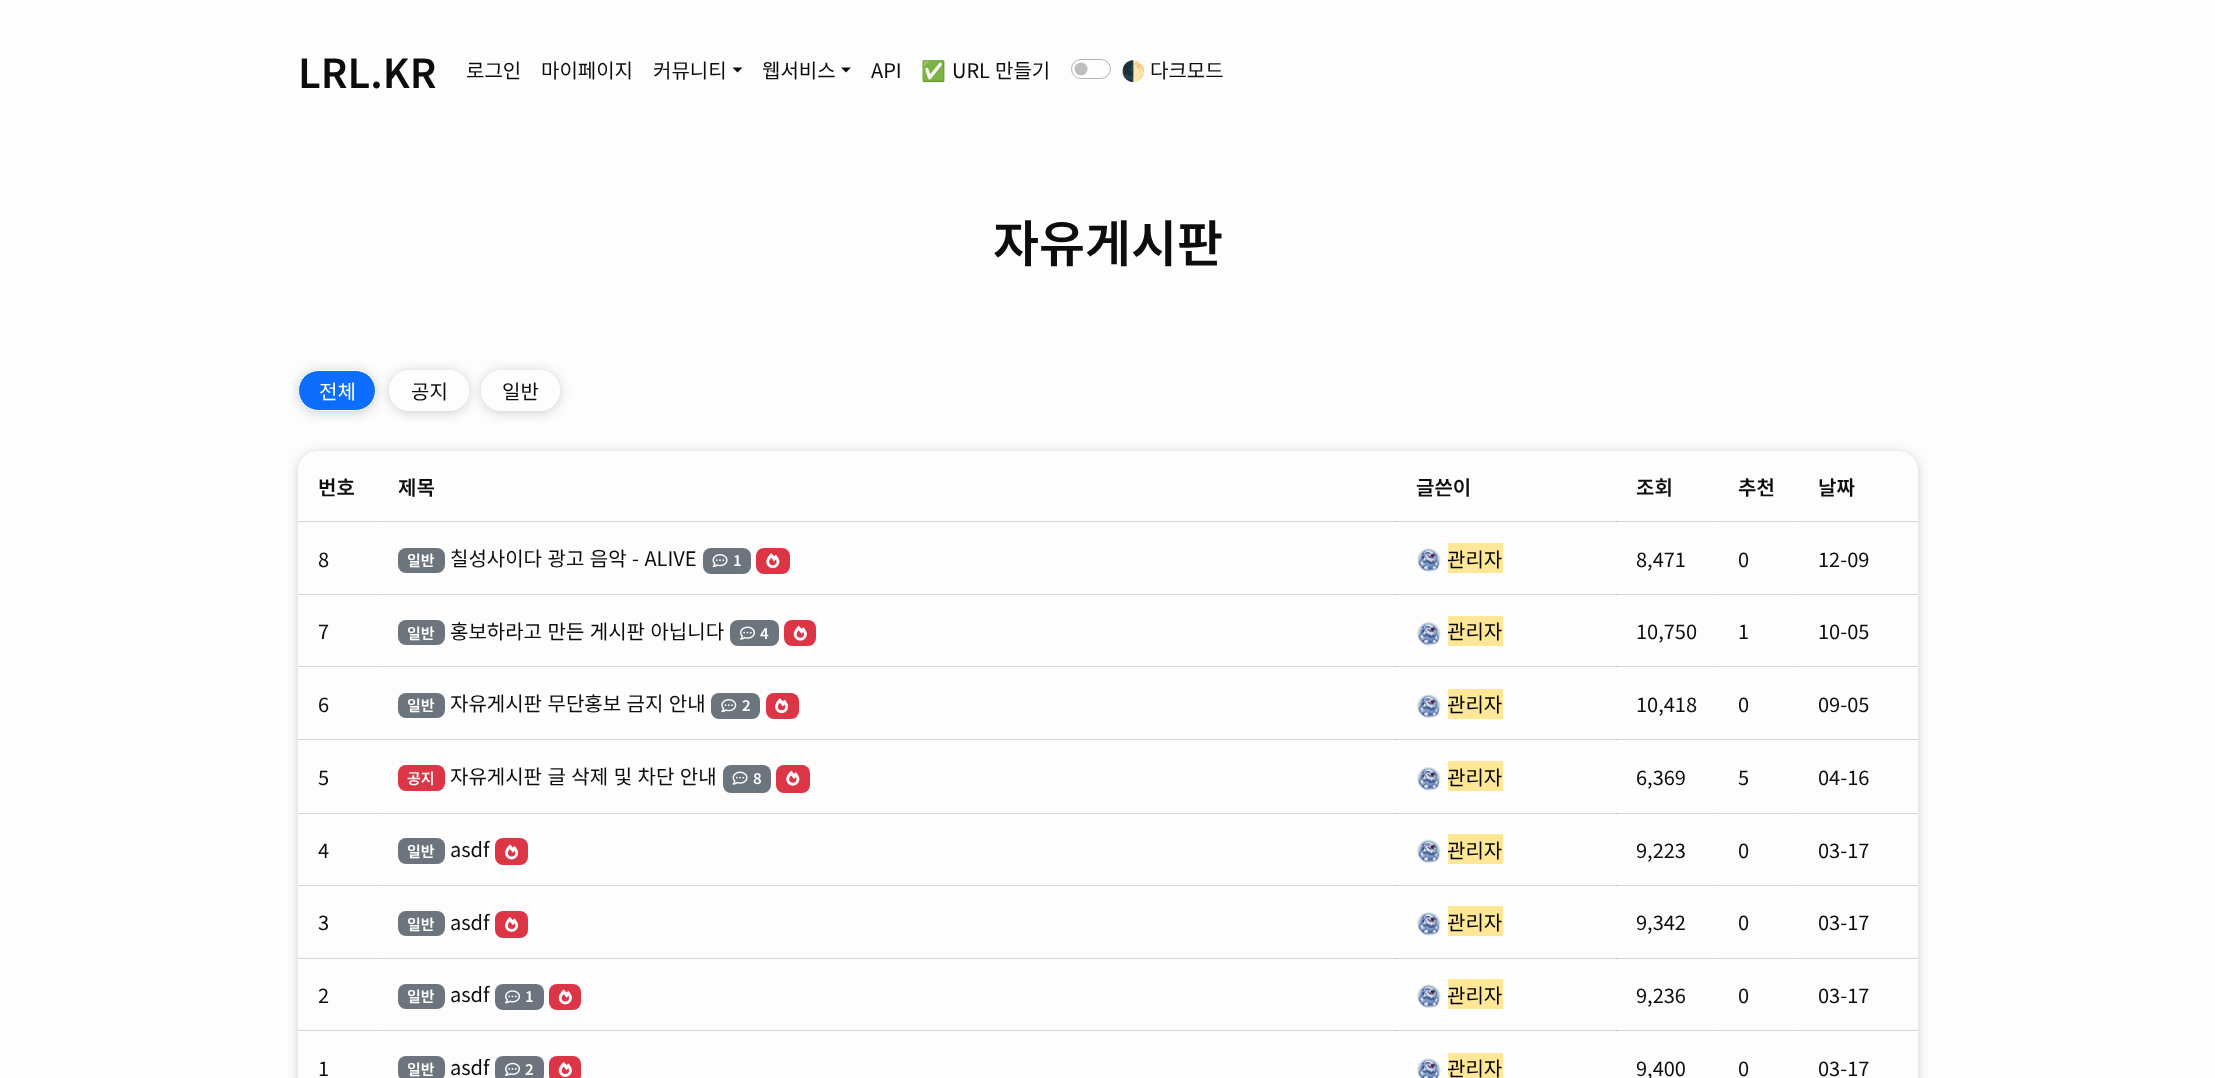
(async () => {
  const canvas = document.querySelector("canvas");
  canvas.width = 2215;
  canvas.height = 1078;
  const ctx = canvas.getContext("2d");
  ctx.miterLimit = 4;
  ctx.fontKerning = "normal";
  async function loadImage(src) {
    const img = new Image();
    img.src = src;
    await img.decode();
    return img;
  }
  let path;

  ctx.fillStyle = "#fdfdfd";
  ctx.fillRect(0, 0, 2215, 1078);
  ctx.fillStyle = "#0d0d0f";
  path = new Path2D("M732.5 67.5H742.5L737.5 72.5Z");
  ctx.fill(path);
  path = new Path2D("M841 67.5H851L846 72.5Z");
  ctx.fill(path);
  ctx.fillStyle = "#bebebe";
  ctx.beginPath();
  ctx.arc(1081, 69, 6.5, 0, Math.PI * 2);
  ctx.fill();
  ctx.beginPath();
  ctx.roundRect(1071.5, 59.5, 39, 19, 9.5);
  ctx.strokeStyle = "#b3b3b3";
  ctx.stroke();
  ctx.fillStyle = "rgba(0, 0, 0, 0.18)";
  ctx.filter = "blur(6px)";
  ctx.beginPath();
  ctx.roundRect(298, 371, 78, 42, 21);
  ctx.fill();
  ctx.filter = "none";
  ctx.fillStyle = "#0d6efd";
  ctx.beginPath();
  ctx.roundRect(298.5, 370.5, 77, 40, 20);
  ctx.fill();
  ctx.strokeStyle = "#ffffff";
  ctx.stroke();
  ctx.save();
  path = new Path2D("M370 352H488V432H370ZM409.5 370H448.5C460 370 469 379 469 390.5C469 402 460 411 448.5 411H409.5C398 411 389 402 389 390.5C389 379 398 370 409.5 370Z");
  ctx.clip(path, "evenodd");
  ctx.fillStyle = "rgba(0, 0, 0, 0.18)";
  ctx.filter = "blur(6px)";
  ctx.beginPath();
  ctx.roundRect(389, 371, 80, 42, 21);
  ctx.fill();
  ctx.filter = "none";
  ctx.restore();
  ctx.beginPath();
  ctx.roundRect(389.5, 370.5, 79, 40, 20);
  ctx.stroke();
  ctx.save();
  path = new Path2D("M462 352H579V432H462ZM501.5 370H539.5C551 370 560 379 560 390.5C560 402 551 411 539.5 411H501.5C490 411 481 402 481 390.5C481 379 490 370 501.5 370Z");
  ctx.clip(path, "evenodd");
  ctx.fillStyle = "rgba(0, 0, 0, 0.18)";
  ctx.filter = "blur(6px)";
  ctx.beginPath();
  ctx.roundRect(481, 371, 79, 42, 21);
  ctx.fill();
  ctx.filter = "none";
  ctx.restore();
  ctx.beginPath();
  ctx.roundRect(481.5, 370.5, 78, 40, 20);
  ctx.stroke();
  ctx.save();
  path = new Path2D("M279 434H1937V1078H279ZM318 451H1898C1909 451 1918 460 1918 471V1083C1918 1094 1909 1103 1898 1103H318C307 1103 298 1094 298 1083V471C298 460 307 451 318 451Z");
  ctx.clip(path, "evenodd");
  ctx.fillStyle = "rgba(0, 0, 0, 0.18)";
  ctx.filter = "blur(6px)";
  ctx.beginPath();
  ctx.roundRect(298, 453, 1620, 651, 20);
  ctx.fill();
  ctx.filter = "none";
  ctx.restore();
  for (const [x, y, w, h, color] of [
    [1798, 521, 120, 1, "rgba(130, 130, 130, 0.3)"],
    [1718, 521, 81, 1, "rgba(130, 130, 130, 0.3)"],
    [1616, 521, 103, 1, "rgba(130, 130, 130, 0.3)"],
    [1396, 521, 222, 1, "rgba(130, 130, 130, 0.3)"],
    [378, 521, 1020, 1, "rgba(130, 130, 130, 0.3)"],
    [298, 521, 81, 1, "rgba(130, 130, 130, 0.3)"],
    [1798, 594, 120, 1, "rgba(130, 130, 130, 0.3)"],
    [1718, 594, 81, 1, "rgba(130, 130, 130, 0.3)"],
    [1616, 594, 103, 1, "rgba(130, 130, 130, 0.3)"],
    [1396, 594, 222, 1, "rgba(130, 130, 130, 0.3)"],
    [378, 594, 1020, 1, "rgba(130, 130, 130, 0.3)"],
    [298, 594, 81, 1, "rgba(130, 130, 130, 0.3)"],
  ]) {
    ctx.fillStyle = color;
    ctx.fillRect(x, y, w, h);
  }
  ctx.fillStyle = "#6c757d";
  ctx.beginPath();
  ctx.roundRect(398, 548, 47, 25, 8);
  ctx.fill();
  ctx.beginPath();
  ctx.roundRect(703, 548, 48, 26, 8);
  ctx.fill();
  ctx.drawImage(await loadImage("img/1.png"), 712, 554, 16, 14);
  ctx.fillStyle = "#dc3545";
  ctx.beginPath();
  ctx.roundRect(756, 548, 34, 26, 8);
  ctx.fill();
  ctx.drawImage(await loadImage("img/2.png"), 766, 553, 14, 16);
  ctx.drawImage(await loadImage("img/3.png"), 1417, 548, 24, 24);
  for (const [x, y, w, h, color] of [
    [1448, 543, 55, 30, "#fee897"],
    [1798, 666, 120, 1, "rgba(130, 130, 130, 0.3)"],
    [1718, 666, 81, 1, "rgba(130, 130, 130, 0.3)"],
    [1616, 666, 103, 1, "rgba(130, 130, 130, 0.3)"],
    [1396, 666, 222, 1, "rgba(130, 130, 130, 0.3)"],
    [378, 666, 1020, 1, "rgba(130, 130, 130, 0.3)"],
    [298, 666, 81, 1, "rgba(130, 130, 130, 0.3)"],
  ]) {
    ctx.fillStyle = color;
    ctx.fillRect(x, y, w, h);
  }
  ctx.fillStyle = "#6c757d";
  ctx.beginPath();
  ctx.roundRect(398, 620, 47, 25, 8);
  ctx.fill();
  ctx.beginPath();
  ctx.roundRect(730, 620, 49, 26, 8);
  ctx.fill();
  ctx.drawImage(await loadImage("img/4.png"), 740, 626, 15, 14);
  ctx.fillStyle = "#dc3545";
  ctx.beginPath();
  ctx.roundRect(784, 620, 32, 26, 8);
  ctx.fill();
  ctx.drawImage(await loadImage("img/5.png"), 793, 625, 14, 16);
  ctx.drawImage(await loadImage("img/6.png"), 1417, 622, 24, 24);
  for (const [x, y, w, h, color] of [
    [1448, 616, 55, 30, "#fee897"],
    [1798, 739, 120, 1, "rgba(130, 130, 130, 0.3)"],
    [1718, 739, 81, 1, "rgba(130, 130, 130, 0.3)"],
    [1616, 739, 103, 1, "rgba(130, 130, 130, 0.3)"],
    [1396, 739, 222, 1, "rgba(130, 130, 130, 0.3)"],
    [378, 739, 1020, 1, "rgba(130, 130, 130, 0.3)"],
    [298, 739, 81, 1, "rgba(130, 130, 130, 0.3)"],
  ]) {
    ctx.fillStyle = color;
    ctx.fillRect(x, y, w, h);
  }
  ctx.fillStyle = "#6c757d";
  ctx.beginPath();
  ctx.roundRect(398, 693, 47, 25, 8);
  ctx.fill();
  ctx.beginPath();
  ctx.roundRect(711, 693, 49, 26, 8);
  ctx.fill();
  ctx.drawImage(await loadImage("img/7.png"), 721, 699, 16, 14);
  ctx.fillStyle = "#dc3545";
  ctx.beginPath();
  ctx.roundRect(766, 693, 33, 26, 8);
  ctx.fill();
  ctx.drawImage(await loadImage("img/8.png"), 775, 698, 14, 16);
  ctx.drawImage(await loadImage("img/9.png"), 1417, 694, 24, 24);
  for (const [x, y, w, h, color] of [
    [1448, 689, 55, 30, "#fee897"],
    [1798, 813, 120, 1, "rgba(130, 130, 130, 0.3)"],
    [1718, 813, 81, 1, "rgba(130, 130, 130, 0.3)"],
    [1616, 813, 103, 1, "rgba(130, 130, 130, 0.3)"],
    [1396, 813, 222, 1, "rgba(130, 130, 130, 0.3)"],
    [378, 813, 1020, 1, "rgba(130, 130, 130, 0.3)"],
    [298, 813, 81, 1, "rgba(130, 130, 130, 0.3)"],
  ]) {
    ctx.fillStyle = color;
    ctx.fillRect(x, y, w, h);
  }
  ctx.fillStyle = "#dc3545";
  ctx.beginPath();
  ctx.roundRect(398, 765, 47, 26, 8);
  ctx.fill();
  ctx.fillStyle = "#6c757d";
  ctx.beginPath();
  ctx.roundRect(723, 765, 48, 28, 8);
  ctx.fill();
  ctx.drawImage(await loadImage("img/10.png"), 732, 771, 16, 14);
  ctx.fillStyle = "#dc3545";
  ctx.beginPath();
  ctx.roundRect(776, 765, 34, 28, 8);
  ctx.fill();
  ctx.drawImage(await loadImage("img/11.png"), 786, 770, 14, 16);
  ctx.drawImage(await loadImage("img/12.png"), 1417, 767, 24, 24);
  for (const [x, y, w, h, color] of [
    [1448, 761, 55, 30, "#fee897"],
    [1798, 885, 120, 1, "rgba(130, 130, 130, 0.3)"],
    [1718, 885, 81, 1, "rgba(130, 130, 130, 0.3)"],
    [1616, 885, 103, 1, "rgba(130, 130, 130, 0.3)"],
    [1396, 885, 222, 1, "rgba(130, 130, 130, 0.3)"],
    [378, 885, 1020, 1, "rgba(130, 130, 130, 0.3)"],
    [298, 885, 81, 1, "rgba(130, 130, 130, 0.3)"],
  ]) {
    ctx.fillStyle = color;
    ctx.fillRect(x, y, w, h);
  }
  ctx.fillStyle = "#6c757d";
  ctx.beginPath();
  ctx.roundRect(398, 838, 47, 26, 8);
  ctx.fill();
  ctx.fillStyle = "#dc3545";
  ctx.beginPath();
  ctx.roundRect(495, 838, 33, 27, 8);
  ctx.fill();
  ctx.drawImage(await loadImage("img/13.png"), 505, 844, 14, 16);
  ctx.drawImage(await loadImage("img/14.png"), 1417, 839, 24, 24);
  for (const [x, y, w, h, color] of [
    [1448, 834, 55, 30, "#fee897"],
    [1798, 958, 120, 1, "rgba(130, 130, 130, 0.3)"],
    [1718, 958, 81, 1, "rgba(130, 130, 130, 0.3)"],
    [1616, 958, 103, 1, "rgba(130, 130, 130, 0.3)"],
    [1396, 958, 222, 1, "rgba(130, 130, 130, 0.3)"],
    [378, 958, 1020, 1, "rgba(130, 130, 130, 0.3)"],
    [298, 958, 81, 1, "rgba(130, 130, 130, 0.3)"],
  ]) {
    ctx.fillStyle = color;
    ctx.fillRect(x, y, w, h);
  }
  ctx.fillStyle = "#6c757d";
  ctx.beginPath();
  ctx.roundRect(398, 911, 47, 25, 8);
  ctx.fill();
  ctx.fillStyle = "#dc3545";
  ctx.beginPath();
  ctx.roundRect(495, 911, 33, 27, 8);
  ctx.fill();
  ctx.drawImage(await loadImage("img/15.png"), 505, 917, 14, 15);
  ctx.drawImage(await loadImage("img/6.png"), 1417, 912, 24, 24);
  for (const [x, y, w, h, color] of [
    [1448, 906, 55, 30, "#fee897"],
    [1798, 1030, 120, 1, "rgba(130, 130, 130, 0.3)"],
    [1718, 1030, 81, 1, "rgba(130, 130, 130, 0.3)"],
    [1616, 1030, 103, 1, "rgba(130, 130, 130, 0.3)"],
    [1396, 1030, 222, 1, "rgba(130, 130, 130, 0.3)"],
    [378, 1030, 1020, 1, "rgba(130, 130, 130, 0.3)"],
    [298, 1030, 81, 1, "rgba(130, 130, 130, 0.3)"],
  ]) {
    ctx.fillStyle = color;
    ctx.fillRect(x, y, w, h);
  }
  ctx.fillStyle = "#6c757d";
  ctx.beginPath();
  ctx.roundRect(398, 984, 47, 25, 8);
  ctx.fill();
  ctx.beginPath();
  ctx.roundRect(495, 984, 49, 26, 8);
  ctx.fill();
  ctx.drawImage(await loadImage("img/16.png"), 505, 990, 15, 14);
  ctx.fillStyle = "#dc3545";
  ctx.beginPath();
  ctx.roundRect(549, 984, 32, 26, 8);
  ctx.fill();
  ctx.drawImage(await loadImage("img/17.png"), 558, 989, 14, 16);
  ctx.drawImage(await loadImage("img/14.png"), 1417, 984, 24, 24);
  ctx.fillStyle = "#fee897";
  ctx.fillRect(1448, 979, 55, 30);
  ctx.fillStyle = "#6c757d";
  ctx.beginPath();
  ctx.roundRect(398, 1056, 47, 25, 8);
  ctx.fill();
  ctx.beginPath();
  ctx.roundRect(495, 1056, 49, 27, 8);
  ctx.fill();
  ctx.drawImage(await loadImage("img/18.png"), 505, 1062, 15, 14);
  ctx.fillStyle = "#dc3545";
  ctx.beginPath();
  ctx.roundRect(549, 1056, 32, 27, 8);
  ctx.fill();
  ctx.drawImage(await loadImage("img/19.png"), 558, 1062, 14, 15);
  ctx.drawImage(await loadImage("img/20.png"), 1417, 1058, 24, 20);
  ctx.fillStyle = "#fee897";
  ctx.fillRect(1448, 1053, 55, 25);
  ctx.font = "600 40px Noto Sans KR";
  ctx.fillStyle = "#0d0d0f";
  ctx.fillText("LRL.KR", 298, 88);
  ctx.font = "20px Noto Sans KR";
  for (const [text, x, y] of [
    ["로그인", 466, 78],
    ["마이페이지", 541, 78],
    ["커뮤니티", 653, 78],
    ["웹서비스", 762, 78],
    ["API", 871, 78],
  ]) {
    ctx.fillText(text, x, y);
  }
  ctx.font = "20px Noto Color Emoji";
  ctx.fillText("✅", 921, 78);
  ctx.font = "20px Noto Sans KR";
  ctx.fillText("URL", 952, 78);
  ctx.fillText("만들기", 995, 78);
  ctx.font = "20px Noto Color Emoji";
  ctx.fillText("🌓", 1121, 78);
  ctx.font = "20px Noto Sans KR";
  ctx.fillText("다크모드", 1150, 78);
  ctx.font = "600 50px Noto Sans KR";
  ctx.fillText("자유게시판", 993, 262);
  ctx.font = "20px Noto Sans KR";
  ctx.fillStyle = "#ffffff";
  ctx.fillText("전체", 319, 399);
  ctx.fillStyle = "#0d0d0f";
  ctx.fillText("공지", 411, 399);
  ctx.fillText("일반", 502, 399);
  ctx.font = "600 20px Noto Sans KR";
  for (const [text, x, y] of [
    ["번호", 318, 495],
    ["제목", 398, 495],
    ["글쓴이", 1416, 495],
    ["조회", 1636, 495],
    ["추천", 1738, 495],
    ["날짜", 1818, 495],
  ]) {
    ctx.fillText(text, x, y);
  }
  ctx.font = "20px Noto Sans KR";
  ctx.fillText("8", 318, 567);
  ctx.font = "600 15px Noto Sans KR";
  ctx.fillStyle = "#ffffff";
  ctx.fillText("일반", 407, 566);
  ctx.wordSpacing = "1px";
  ctx.font = "20px Noto Sans KR";
  ctx.fillStyle = "#0d0d0f";
  ctx.fillText("칠성사이다 광고 음악 - ALIVE", 450, 566);
  ctx.wordSpacing = "0px";
  ctx.font = "600 15px Noto Sans KR";
  ctx.fillStyle = "#ffffff";
  ctx.fillText("1", 733, 566);
  ctx.font = "20px Noto Sans KR";
  ctx.fillStyle = "#000000";
  ctx.fillText("관리자", 1447, 567);
  ctx.fillStyle = "#0d0d0f";
  for (const [text, x, y] of [
    ["8,471", 1636, 567],
    ["0", 1738, 567],
    ["12-09", 1818, 567],
    ["7", 318, 639],
  ]) {
    ctx.fillText(text, x, y);
  }
  ctx.font = "600 15px Noto Sans KR";
  ctx.fillStyle = "#ffffff";
  ctx.fillText("일반", 407, 639);
  ctx.wordSpacing = "1px";
  ctx.font = "20px Noto Sans KR";
  ctx.fillStyle = "#0d0d0f";
  ctx.fillText("홍보하라고 만든 게시판 아닙니다", 450, 639);
  ctx.wordSpacing = "0px";
  ctx.font = "600 15px Noto Sans KR";
  ctx.fillStyle = "#ffffff";
  ctx.fillText("4", 760, 639);
  ctx.font = "20px Noto Sans KR";
  ctx.fillStyle = "#000000";
  ctx.fillText("관리자", 1447, 639);
  ctx.fillStyle = "#0d0d0f";
  for (const [text, x, y] of [
    ["10,750", 1636, 639],
    ["1", 1738, 639],
    ["10-05", 1818, 639],
    ["6", 318, 712],
  ]) {
    ctx.fillText(text, x, y);
  }
  ctx.font = "600 15px Noto Sans KR";
  ctx.fillStyle = "#ffffff";
  ctx.fillText("일반", 407, 711);
  ctx.wordSpacing = "1px";
  ctx.font = "20px Noto Sans KR";
  ctx.fillStyle = "#0d0d0f";
  ctx.fillText("자유게시판 무단홍보 금지 안내", 450, 711);
  ctx.wordSpacing = "0px";
  ctx.font = "600 15px Noto Sans KR";
  ctx.fillStyle = "#ffffff";
  ctx.fillText("2", 742, 711);
  ctx.font = "20px Noto Sans KR";
  ctx.fillStyle = "#000000";
  ctx.fillText("관리자", 1447, 712);
  ctx.fillStyle = "#0d0d0f";
  for (const [text, x, y] of [
    ["10,418", 1636, 712],
    ["0", 1738, 712],
    ["09-05", 1818, 712],
    ["5", 318, 785],
  ]) {
    ctx.fillText(text, x, y);
  }
  ctx.font = "600 15px Noto Sans KR";
  ctx.fillStyle = "#ffffff";
  ctx.fillText("공지", 407, 784);
  ctx.wordSpacing = "1px";
  ctx.font = "20px Noto Sans KR";
  ctx.fillStyle = "#0d0d0f";
  ctx.fillText("자유게시판 글 삭제 및 차단 안내", 450, 784);
  ctx.wordSpacing = "0px";
  ctx.font = "600 15px Noto Sans KR";
  ctx.fillStyle = "#ffffff";
  ctx.fillText("8", 753, 784);
  ctx.font = "20px Noto Sans KR";
  ctx.fillStyle = "#000000";
  ctx.fillText("관리자", 1447, 785);
  ctx.fillStyle = "#0d0d0f";
  for (const [text, x, y] of [
    ["6,369", 1636, 785],
    ["5", 1738, 785],
    ["04-16", 1818, 785],
    ["4", 318, 858],
  ]) {
    ctx.fillText(text, x, y);
  }
  ctx.font = "600 15px Noto Sans KR";
  ctx.fillStyle = "#ffffff";
  ctx.fillText("일반", 407, 857);
  ctx.font = "20px Noto Sans KR";
  ctx.fillStyle = "#0d0d0f";
  ctx.fillText("asdf", 450, 857);
  ctx.fillStyle = "#000000";
  ctx.fillText("관리자", 1447, 858);
  ctx.fillStyle = "#0d0d0f";
  for (const [text, x, y] of [
    ["9,223", 1636, 858],
    ["0", 1738, 858],
    ["03-17", 1818, 858],
    ["3", 318, 930],
  ]) {
    ctx.fillText(text, x, y);
  }
  ctx.font = "600 15px Noto Sans KR";
  ctx.fillStyle = "#ffffff";
  ctx.fillText("일반", 407, 930);
  ctx.font = "20px Noto Sans KR";
  ctx.fillStyle = "#0d0d0f";
  ctx.fillText("asdf", 450, 930);
  ctx.fillStyle = "#000000";
  ctx.fillText("관리자", 1447, 930);
  ctx.fillStyle = "#0d0d0f";
  for (const [text, x, y] of [
    ["9,342", 1636, 930],
    ["0", 1738, 930],
    ["03-17", 1818, 930],
    ["2", 318, 1003],
  ]) {
    ctx.fillText(text, x, y);
  }
  ctx.font = "600 15px Noto Sans KR";
  ctx.fillStyle = "#ffffff";
  ctx.fillText("일반", 407, 1002);
  ctx.font = "20px Noto Sans KR";
  ctx.fillStyle = "#0d0d0f";
  ctx.fillText("asdf", 450, 1002);
  ctx.font = "600 15px Noto Sans KR";
  ctx.fillStyle = "#ffffff";
  ctx.fillText("1", 525, 1002);
  ctx.font = "20px Noto Sans KR";
  ctx.fillStyle = "#000000";
  ctx.fillText("관리자", 1447, 1003);
  ctx.fillStyle = "#0d0d0f";
  for (const [text, x, y] of [
    ["9,236", 1636, 1003],
    ["0", 1738, 1003],
    ["03-17", 1818, 1003],
    ["1", 318, 1076],
  ]) {
    ctx.fillText(text, x, y);
  }
  ctx.font = "600 15px Noto Sans KR";
  ctx.fillStyle = "#ffffff";
  ctx.fillText("일반", 407, 1075);
  ctx.font = "20px Noto Sans KR";
  ctx.fillStyle = "#0d0d0f";
  ctx.fillText("asdf", 450, 1075);
  ctx.font = "600 15px Noto Sans KR";
  ctx.fillStyle = "#ffffff";
  ctx.fillText("2", 525, 1075);
  ctx.font = "20px Noto Sans KR";
  ctx.fillStyle = "#000000";
  ctx.fillText("관리자", 1447, 1076);
  ctx.fillStyle = "#0d0d0f";
  for (const [text, x, y] of [
    ["9,400", 1636, 1076],
    ["0", 1738, 1076],
    ["03-17", 1818, 1076],
  ]) {
    ctx.fillText(text, x, y);
  }
})();
